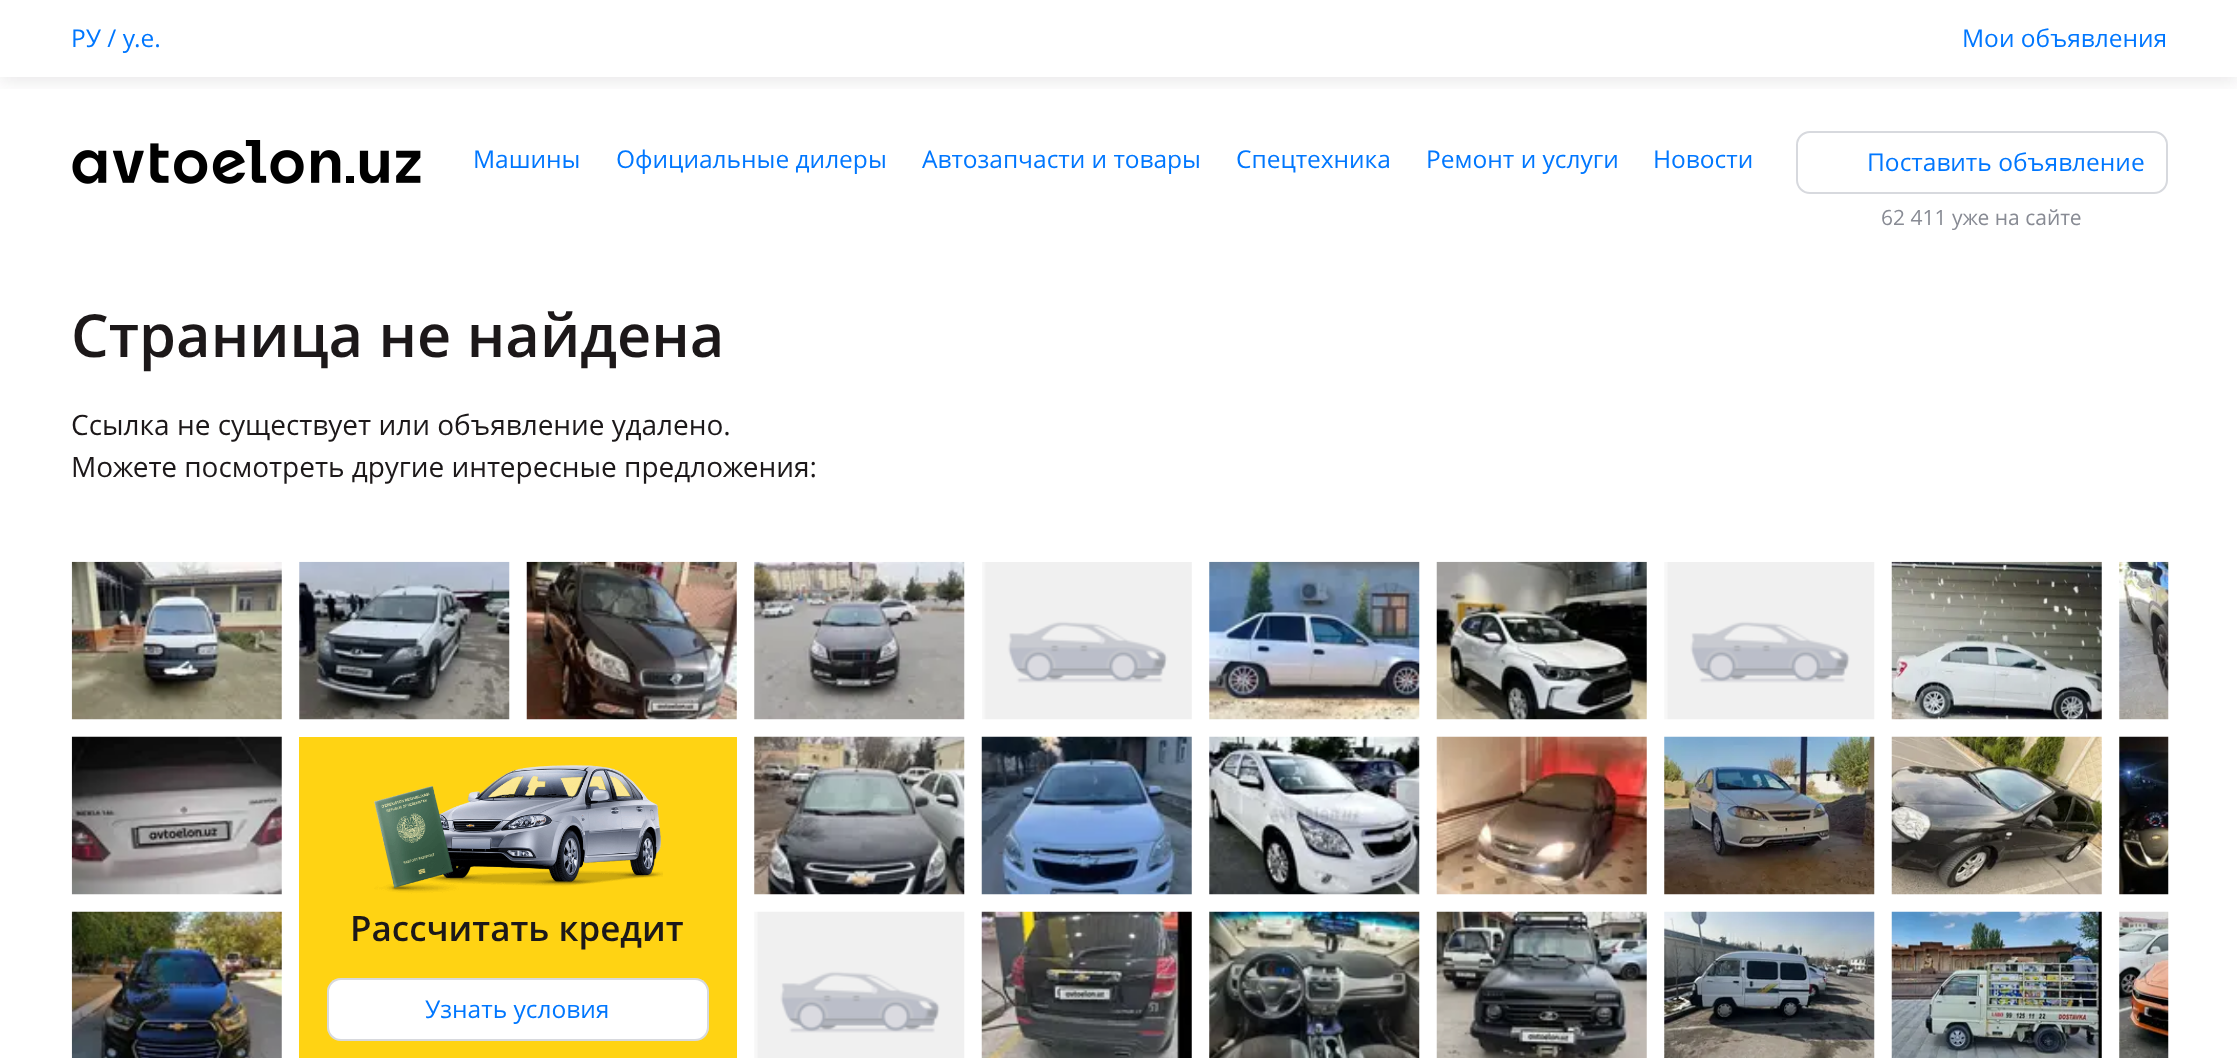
(async () => {
  const canvas = document.querySelector("canvas");
  canvas.width = 2237;
  canvas.height = 1058;
  const ctx = canvas.getContext("2d");
  ctx.miterLimit = 4;
  ctx.fontKerning = "normal";
  async function loadImage(src) {
    const img = new Image();
    img.src = src;
    await img.decode();
    return img;
  }

  ctx.fillStyle = "#ffffff";
  ctx.fillRect(0, 0, 2237, 1058);
  ctx.save();
  ctx.beginPath();
  ctx.rect(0, 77, 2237, 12);
  ctx.clip();
  ctx.fillStyle = "rgba(28, 24, 25, 0.1)";
  ctx.filter = "blur(9px)";
  ctx.beginPath();
  ctx.rect(0, 4, 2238, 77);
  ctx.fill();
  ctx.filter = "none";
  ctx.restore();
  ctx.drawImage(await loadImage("img/1.png"), 72, 140, 349, 44);
  ctx.beginPath();
  ctx.roundRect(1797, 132, 370, 61, 13);
  ctx.strokeStyle = "#d7d9de";
  ctx.lineWidth = 2;
  ctx.stroke();
  ctx.drawImage(await loadImage("img/2.png"), 71, 561, 211, 159);
  ctx.drawImage(await loadImage("img/3.png"), 299, 561, 211, 159);
  ctx.drawImage(await loadImage("img/4.png"), 526, 561, 211, 159);
  ctx.drawImage(await loadImage("img/5.png"), 754, 561, 211, 159);
  ctx.drawImage(await loadImage("img/6.png"), 982, 562, 210, 158);
  ctx.drawImage(await loadImage("img/7.png"), 1209, 561, 211, 159);
  ctx.drawImage(await loadImage("img/8.png"), 1436, 561, 211, 159);
  ctx.drawImage(await loadImage("img/9.png"), 1664, 562, 211, 158);
  ctx.drawImage(await loadImage("img/10.png"), 1891, 561, 211, 159);
  ctx.drawImage(await loadImage("img/11.png"), 2119, 561, 50, 159);
  ctx.drawImage(await loadImage("img/12.png"), 71, 736, 211, 159);
  ctx.drawImage(await loadImage("img/13.png"), 754, 736, 211, 159);
  ctx.drawImage(await loadImage("img/14.png"), 981, 736, 211, 159);
  ctx.drawImage(await loadImage("img/15.png"), 1209, 736, 211, 159);
  ctx.drawImage(await loadImage("img/16.png"), 1436, 736, 211, 159);
  ctx.drawImage(await loadImage("img/17.png"), 1664, 736, 211, 159);
  ctx.drawImage(await loadImage("img/18.png"), 1891, 736, 211, 159);
  ctx.drawImage(await loadImage("img/19.png"), 2119, 736, 50, 159);
  ctx.drawImage(await loadImage("img/20.png"), 71, 911, 211, 147);
  ctx.fillStyle = "#ffd313";
  ctx.fillRect(299, 737, 438, 321);
  ctx.drawImage(await loadImage("img/21.png"), 374, 764, 289, 130);
  ctx.fillStyle = "#ffffff";
  ctx.beginPath();
  ctx.roundRect(327, 978, 382, 63, 14);
  ctx.fill();
  ctx.beginPath();
  ctx.roundRect(328, 979, 380, 61, 13);
  ctx.strokeStyle = "rgba(80, 91, 113, 0.23)";
  ctx.stroke();
  ctx.drawImage(await loadImage("img/22.png"), 754, 911, 211, 147);
  ctx.drawImage(await loadImage("img/23.png"), 981, 911, 211, 147);
  ctx.drawImage(await loadImage("img/24.png"), 1209, 911, 211, 147);
  ctx.drawImage(await loadImage("img/25.png"), 1436, 911, 211, 147);
  ctx.drawImage(await loadImage("img/26.png"), 1664, 911, 211, 147);
  ctx.drawImage(await loadImage("img/27.png"), 1891, 911, 211, 147);
  ctx.drawImage(await loadImage("img/28.png"), 2119, 911, 50, 147);
  ctx.font = "24.5px Open Sans";
  ctx.fillStyle = "#0077ff";
  for (const [text, x, y] of [
    ["РУ / у.е.", 71, 47],
    ["Мои объявления", 1962, 47],
    ["Машины", 473, 168],
    ["Официальные дилеры", 616, 168],
    ["Автозапчасти и товары", 922, 168],
    ["Спецтехника", 1236, 168],
    ["Ремонт и услуги", 1426, 168],
    ["Новости", 1653, 168],
    ["Поставить объявление", 1867, 171],
  ]) {
    ctx.fillText(text, x, y);
  }
  ctx.font = "21px Open Sans";
  ctx.fillStyle = "#888b94";
  ctx.fillText("62 411 уже на сайте", 1881, 225);
  ctx.font = "600 59.5px Open Sans";
  ctx.fillStyle = "#1c1819";
  ctx.fillText("Страница не найдена", 71, 357);
  ctx.font = "28px Open Sans";
  ctx.fillText("Cсылка не существует или объявление удалено.", 71, 435);
  ctx.fillText("Можете посмотреть другие интересные предложения:", 71, 477);
  ctx.font = "600 35px Open Sans";
  ctx.fillText("Рассчитать кредит", 350, 941);
  ctx.font = "24.5px Open Sans";
  ctx.fillStyle = "#0077ff";
  ctx.fillText("Узнать условия", 425, 1018);
})();
